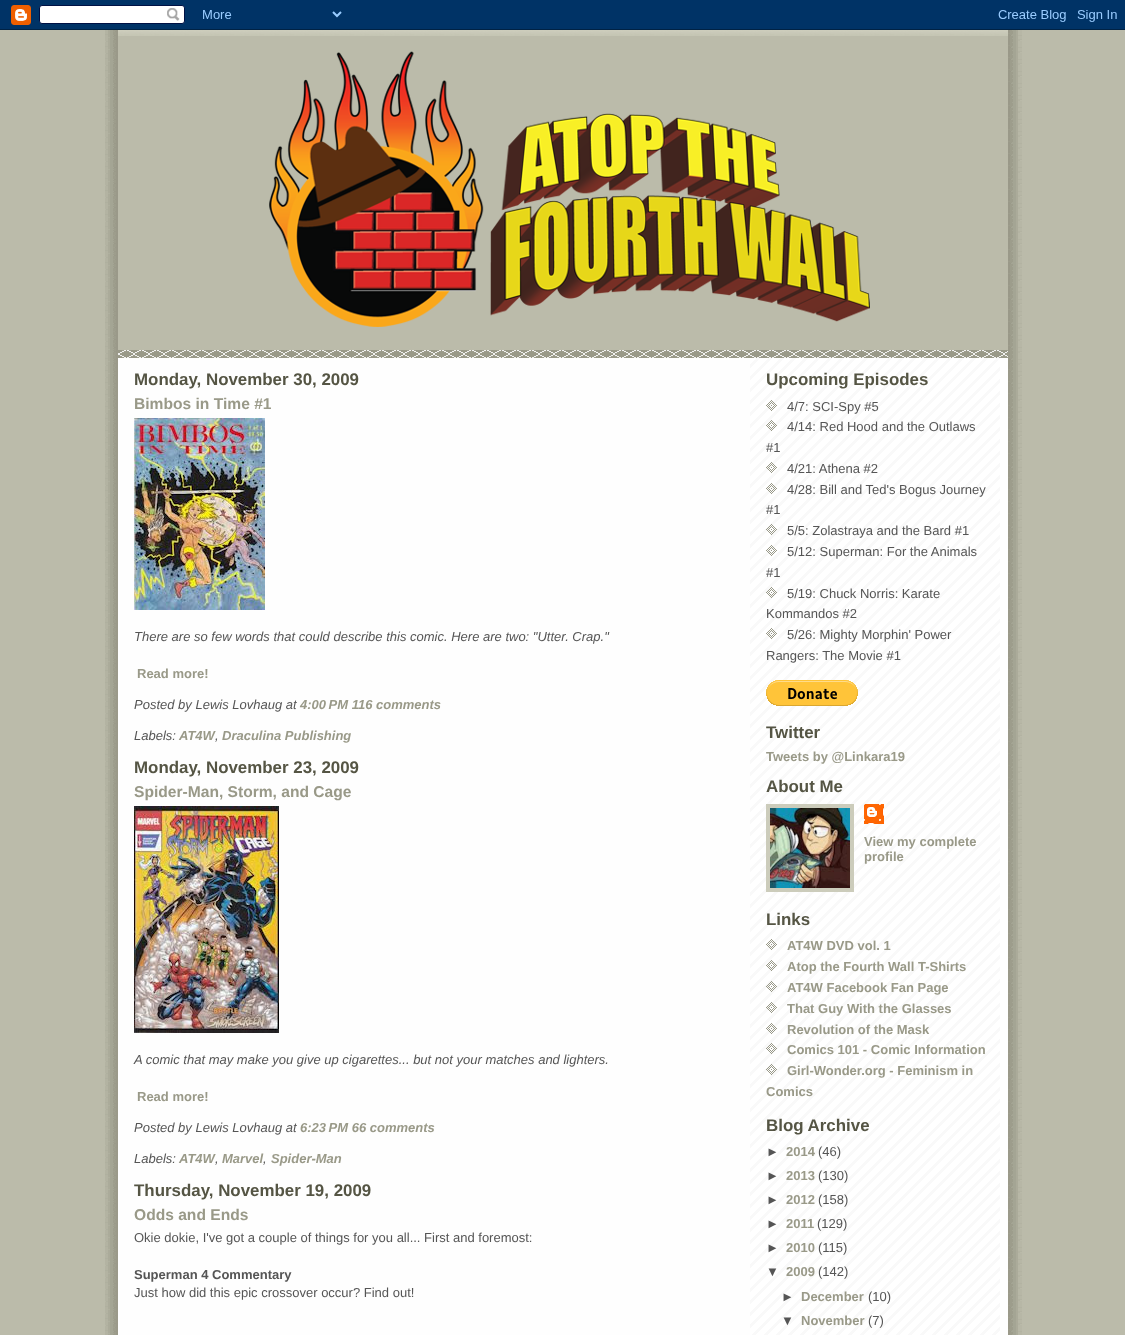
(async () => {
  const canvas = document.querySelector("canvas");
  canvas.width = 1125;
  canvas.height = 1335;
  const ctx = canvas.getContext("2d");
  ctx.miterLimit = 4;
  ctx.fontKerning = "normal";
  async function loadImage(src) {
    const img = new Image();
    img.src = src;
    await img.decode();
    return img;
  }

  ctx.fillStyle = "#bbbbaa";
  ctx.fillRect(0, 0, 1125, 1335);
  ctx.drawImage(await loadImage("img/1.png"), 105, 30, 917, 1305);
  ctx.drawImage(await loadImage("img/2.png"), 0, 0, 1125, 30);
  ctx.drawImage(await loadImage("img/3.png"), 750, 358, 250, 977);
  ctx.fillRect(118, 36, 890, 314);
  ctx.drawImage(await loadImage("img/4.png"), 118, 350, 890, 8);
  ctx.drawImage(await loadImage("img/5.png"), 118, 30, 890, 6);
  ctx.drawImage(await loadImage("img/6.png"), 269, 51, 601, 276);
  ctx.drawImage(await loadImage("img/7.png"), 134, 418, 131, 192);
  ctx.drawImage(await loadImage("img/8.png"), 134, 806, 145, 227);
  ctx.drawImage(await loadImage("img/9.png"), 766, 400, 11, 11);
  ctx.drawImage(await loadImage("img/10.png"), 766, 420, 11, 11);
  ctx.drawImage(await loadImage("img/11.png"), 766, 462, 11, 11);
  ctx.drawImage(await loadImage("img/12.png"), 766, 483, 11, 11);
  ctx.drawImage(await loadImage("img/13.png"), 766, 524, 11, 11);
  ctx.drawImage(await loadImage("img/14.png"), 766, 545, 11, 11);
  ctx.drawImage(await loadImage("img/15.png"), 766, 587, 11, 11);
  ctx.drawImage(await loadImage("img/9.png"), 766, 628, 11, 11);
  ctx.drawImage(await loadImage("img/16.png"), 766, 680, 92, 26);
  ctx.strokeStyle = "#ccccbb";
  ctx.lineWidth = 4;
  ctx.strokeRect(768, 806, 84, 84);
  ctx.drawImage(await loadImage("img/17.png"), 770, 808, 80, 80);
  ctx.drawImage(await loadImage("img/18.png"), 864, 804, 20, 20);
  ctx.drawImage(await loadImage("img/12.png"), 766, 939, 11, 11);
  ctx.drawImage(await loadImage("img/10.png"), 766, 960, 11, 11);
  ctx.drawImage(await loadImage("img/19.png"), 766, 981, 11, 11);
  ctx.drawImage(await loadImage("img/11.png"), 766, 1002, 11, 11);
  ctx.drawImage(await loadImage("img/12.png"), 766, 1023, 11, 11);
  ctx.drawImage(await loadImage("img/15.png"), 766, 1043, 11, 11);
  ctx.drawImage(await loadImage("img/13.png"), 766, 1064, 11, 11);
  ctx.font = "bold 16.9px Liberation Sans";
  ctx.fillStyle = "#555544";
  ctx.fillText("Monday, November 30, 2009", 134, 385);
  ctx.font = "bold 15.6px Liberation Sans";
  ctx.fillStyle = "#999988";
  ctx.fillText("Bimbos in Time #1", 134, 409);
  ctx.font = "italic 13px Liberation Sans";
  ctx.fillStyle = "#555555";
  ctx.fillText("There are so few words that could describe this comic. Here are two: \"Utter. Crap.\"", 134, 641);
  ctx.font = "bold 13px Liberation Sans";
  ctx.fillStyle = "#999988";
  ctx.fillText("Read more!", 137, 678);
  ctx.font = "italic 13px Liberation Sans";
  ctx.fillStyle = "#555555";
  ctx.fillText("Posted by Lewis Lovhaug at", 134, 709);
  ctx.font = "italic bold 13px Liberation Sans";
  ctx.fillStyle = "#999988";
  ctx.fillText("4:00 PM 116 comments", 300, 709);
  ctx.font = "italic 13px Liberation Sans";
  ctx.fillStyle = "#555555";
  ctx.fillText("Labels:", 134, 740);
  ctx.font = "italic bold 13px Liberation Sans";
  ctx.fillStyle = "#999988";
  ctx.fillText("AT4W", 179, 740);
  ctx.fillText("Draculina Publishing", 222, 740);
  ctx.font = "italic 13px Liberation Sans";
  ctx.fillStyle = "#555555";
  ctx.fillText(",", 215, 740);
  ctx.font = "bold 16.9px Liberation Sans";
  ctx.fillStyle = "#555544";
  ctx.fillText("Monday, November 23, 2009", 134, 773);
  ctx.font = "bold 15.6px Liberation Sans";
  ctx.fillStyle = "#999988";
  ctx.fillText("Spider-Man, Storm, and Cage", 134, 797);
  ctx.font = "italic 13px Liberation Sans";
  ctx.fillStyle = "#555555";
  ctx.fillText("A comic that may make you give up cigarettes... but not your matches and lighters.", 134, 1064);
  ctx.font = "bold 13px Liberation Sans";
  ctx.fillStyle = "#999988";
  ctx.fillText("Read more!", 137, 1101);
  ctx.font = "italic 13px Liberation Sans";
  ctx.fillStyle = "#555555";
  ctx.fillText("Posted by Lewis Lovhaug at", 134, 1132);
  ctx.font = "italic bold 13px Liberation Sans";
  ctx.fillStyle = "#999988";
  ctx.fillText("6:23 PM 66 comments", 300, 1132);
  ctx.font = "italic 13px Liberation Sans";
  ctx.fillStyle = "#555555";
  ctx.fillText("Labels:", 134, 1163);
  ctx.font = "italic bold 13px Liberation Sans";
  ctx.fillStyle = "#999988";
  for (const [text, x, y] of [
    ["AT4W", 179, 1163],
    ["Marvel", 222, 1163],
    ["Spider-Man", 271, 1163],
  ]) {
    ctx.fillText(text, x, y);
  }
  ctx.font = "italic 13px Liberation Sans";
  ctx.fillStyle = "#555555";
  ctx.fillText(",", 215, 1163);
  ctx.fillText(",", 263, 1163);
  ctx.save();
  ctx.beginPath();
  ctx.rect(134, 358, 600, 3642);
  ctx.clip();
  ctx.font = "bold 16.9px Liberation Sans";
  ctx.fillStyle = "#555544";
  ctx.fillText("Thursday, November 19, 2009", 134, 1196);
  ctx.restore();
  ctx.font = "bold 15.6px Liberation Sans";
  ctx.fillStyle = "#999988";
  ctx.fillText("Odds and Ends", 134, 1220);
  ctx.font = "13px Liberation Sans";
  ctx.fillStyle = "#555555";
  ctx.fillText("Okie dokie, I've got a couple of things for you all... First and foremost:", 134, 1242);
  ctx.font = "bold 13px Liberation Sans";
  ctx.fillText("Superman 4 Commentary", 134, 1279);
  ctx.font = "13px Liberation Sans";
  ctx.fillText("Just how did this epic crossover occur? Find out!", 134, 1297);
  ctx.font = "bold 16.9px Liberation Sans";
  ctx.fillStyle = "#555544";
  ctx.fillText("Upcoming Episodes", 766, 385);
  ctx.font = "13px Liberation Sans";
  ctx.fillStyle = "#555555";
  for (const [text, x, y] of [
    ["4/7: SCI-Spy #5", 787, 411],
    ["4/14: Red Hood and the Outlaws", 787, 431],
    ["#1", 766, 452],
    ["4/21: Athena #2", 787, 473],
    ["4/28: Bill and Ted's Bogus Journey", 787, 494],
    ["#1", 766, 514],
    ["5/5: Zolastraya and the Bard #1", 787, 535],
    ["5/12: Superman: For the Animals", 787, 556],
    ["#1", 766, 577],
    ["5/19: Chuck Norris: Karate", 787, 598],
    ["Kommandos #2", 766, 618],
    ["5/26: Mighty Morphin' Power", 787, 639],
    ["Rangers: The Movie #1", 766, 660],
  ]) {
    ctx.fillText(text, x, y);
  }
  ctx.save();
  ctx.beginPath();
  ctx.rect(766, 358, 226, 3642);
  ctx.clip();
  ctx.font = "bold 16.9px Liberation Sans";
  ctx.fillStyle = "#555544";
  ctx.fillText("Twitter", 766, 738);
  ctx.restore();
  ctx.font = "bold 13px Liberation Sans";
  ctx.fillStyle = "#999988";
  ctx.fillText("Tweets by @Linkara19", 766, 761);
  ctx.font = "bold 16.9px Liberation Sans";
  ctx.fillStyle = "#555544";
  ctx.fillText("About Me", 766, 792);
  ctx.font = "bold 13px Liberation Sans";
  ctx.fillStyle = "#999988";
  ctx.fillText("View my complete", 864, 846);
  ctx.fillText("profile", 864, 861);
  ctx.font = "bold 16.9px Liberation Sans";
  ctx.fillStyle = "#555544";
  ctx.fillText("Links", 766, 925);
  ctx.font = "bold 13px Liberation Sans";
  ctx.fillStyle = "#999988";
  for (const [text, x, y] of [
    ["AT4W DVD vol. 1", 787, 950],
    ["Atop the Fourth Wall T-Shirts", 787, 971],
    ["AT4W Facebook Fan Page", 787, 992],
    ["That Guy With the Glasses", 787, 1013],
    ["Revolution of the Mask", 787, 1034],
    ["Comics 101 - Comic Information", 787, 1054],
    ["Girl-Wonder.org - Feminism in", 787, 1075],
    ["Comics", 766, 1096],
  ]) {
    ctx.fillText(text, x, y);
  }
  ctx.font = "bold 16.9px Liberation Sans";
  ctx.fillStyle = "#555544";
  ctx.fillText("Blog Archive", 766, 1131);
  ctx.font = "bold 13px Liberation Sans";
  ctx.fillStyle = "#555555";
  ctx.fillText("►", 766, 1156);
  ctx.fillStyle = "#999988";
  ctx.fillText("2014", 786, 1156);
  ctx.font = "13px Liberation Sans";
  ctx.fillStyle = "#555555";
  ctx.fillText("(46)", 818, 1156);
  ctx.font = "bold 13px Liberation Sans";
  ctx.fillText("►", 766, 1180);
  ctx.fillStyle = "#999988";
  ctx.fillText("2013", 786, 1180);
  ctx.font = "13px Liberation Sans";
  ctx.fillStyle = "#555555";
  ctx.fillText("(130)", 818, 1180);
  ctx.font = "bold 13px Liberation Sans";
  ctx.fillText("►", 766, 1204);
  ctx.fillStyle = "#999988";
  ctx.fillText("2012", 786, 1204);
  ctx.font = "13px Liberation Sans";
  ctx.fillStyle = "#555555";
  ctx.fillText("(158)", 818, 1204);
  ctx.font = "bold 13px Liberation Sans";
  ctx.fillText("►", 766, 1228);
  ctx.fillStyle = "#999988";
  ctx.fillText("2011", 786, 1228);
  ctx.font = "13px Liberation Sans";
  ctx.fillStyle = "#555555";
  ctx.fillText("(129)", 817, 1228);
  ctx.font = "bold 13px Liberation Sans";
  ctx.fillText("►", 766, 1252);
  ctx.fillStyle = "#999988";
  ctx.fillText("2010", 786, 1252);
  ctx.font = "13px Liberation Sans";
  ctx.fillStyle = "#555555";
  ctx.fillText("(115)", 818, 1252);
  ctx.font = "bold 13px Liberation Sans";
  ctx.fillText("▼", 766, 1276);
  ctx.fillStyle = "#999988";
  ctx.fillText("2009", 786, 1276);
  ctx.font = "13px Liberation Sans";
  ctx.fillStyle = "#555555";
  ctx.fillText("(142)", 818, 1276);
  ctx.font = "bold 13px Liberation Sans";
  ctx.fillText("►", 781, 1301);
  ctx.fillStyle = "#999988";
  ctx.fillText("December", 801, 1301);
  ctx.font = "13px Liberation Sans";
  ctx.fillStyle = "#555555";
  ctx.fillText("(10)", 868, 1301);
  ctx.font = "bold 13px Liberation Sans";
  ctx.fillText("▼", 781, 1325);
  ctx.fillStyle = "#999988";
  ctx.fillText("November", 801, 1325);
  ctx.font = "13px Liberation Sans";
  ctx.fillStyle = "#555555";
  ctx.fillText("(7)", 868, 1325);
})();
